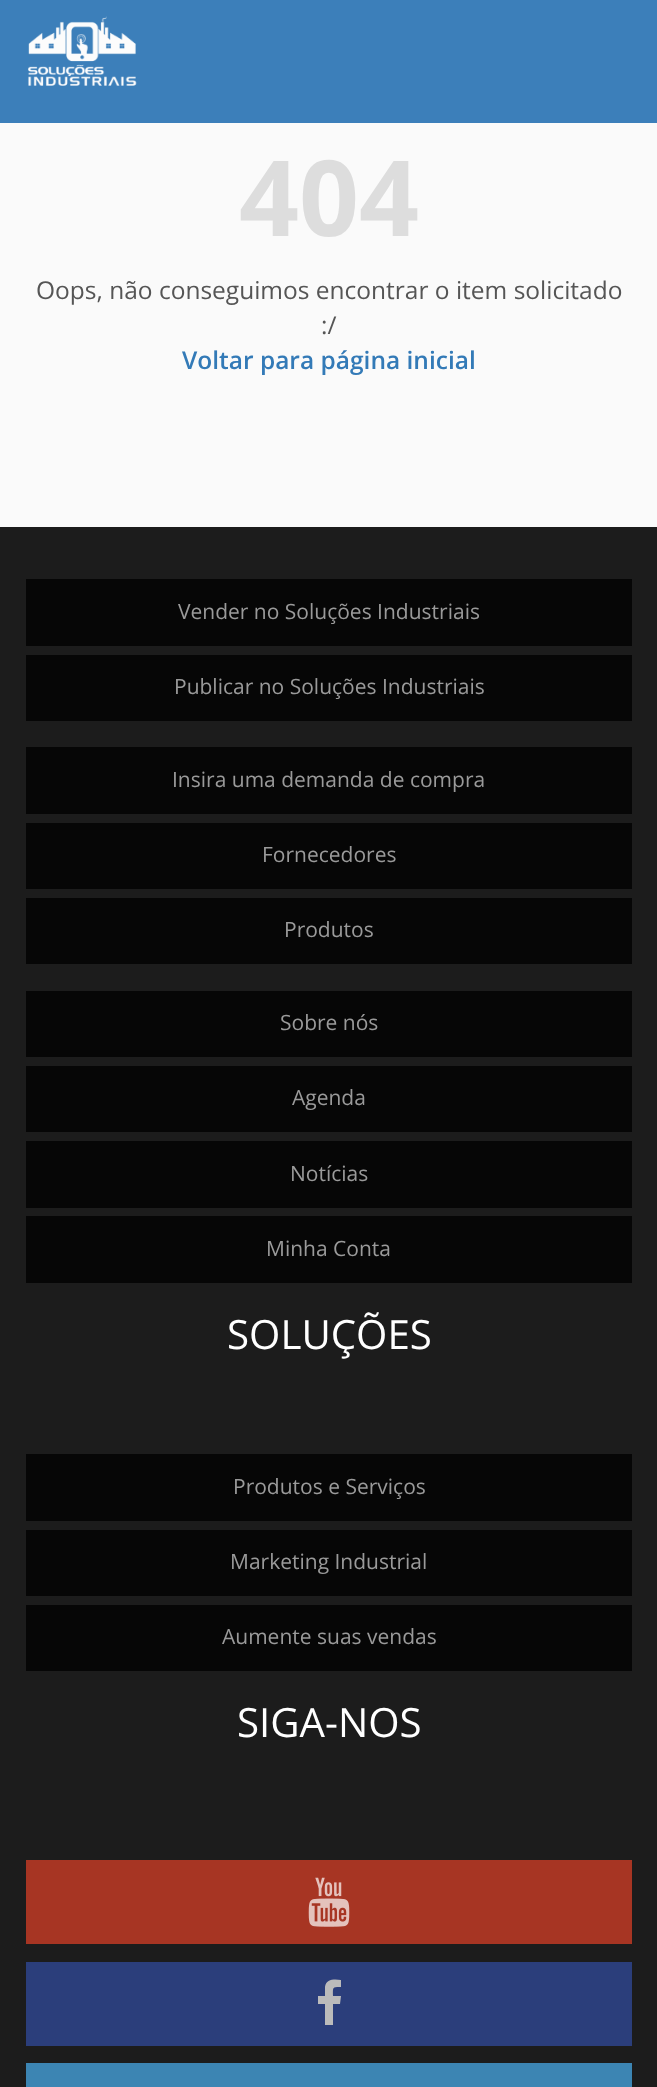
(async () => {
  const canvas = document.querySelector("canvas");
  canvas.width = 657;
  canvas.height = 2087;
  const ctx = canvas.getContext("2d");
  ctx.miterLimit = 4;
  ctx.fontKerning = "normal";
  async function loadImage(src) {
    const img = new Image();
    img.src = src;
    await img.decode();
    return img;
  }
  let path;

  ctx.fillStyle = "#fafafa";
  ctx.fillRect(0, 0, 657, 2087);
  ctx.fillStyle = "#3c7fba";
  ctx.fillRect(0, 0, 657, 123);
  ctx.drawImage(await loadImage("img/1.png"), 28, 16, 109, 70);
  for (const [x, y, w, h, color] of [
    [0, 527, 657, 1560, "#1c1c1c"],
    [26, 579, 606, 67, "#060606"],
    [26, 655, 606, 66, "#060606"],
    [26, 747, 606, 67, "#060606"],
    [26, 823, 606, 66, "#060606"],
    [26, 898, 606, 66, "#060606"],
    [26, 991, 606, 66, "#060606"],
    [26, 1066, 606, 66, "#060606"],
    [26, 1141, 606, 67, "#060606"],
    [26, 1216, 606, 67, "#060606"],
    [26, 1454, 606, 67, "#060606"],
    [26, 1530, 606, 66, "#060606"],
    [26, 1605, 606, 66, "#060606"],
    [26, 1860, 606, 84, "#a73523"],
  ]) {
    ctx.fillStyle = color;
    ctx.fillRect(x, y, w, h);
  }
  ctx.drawImage(await loadImage("img/2.png"), 308, 1877, 42, 50);
  ctx.fillStyle = "#2b3e7b";
  ctx.fillRect(26, 1962, 606, 84);
  ctx.fillStyle = "#bbbbbb";
  path = new Path2D("M341 1980C334 1979 326 1979 325 1987V1996H318V2004H325V2025H333V2004H340L341 1996H333C333 1987 332 1987 341 1987Z");
  ctx.fill(path);
  ctx.fillStyle = "#3c85b3";
  ctx.fillRect(26, 2063, 606, 24);
  ctx.font = "bold 105px Open Sans";
  ctx.fillStyle = "#dddddd";
  ctx.fillText("404", 239, 236);
  ctx.font = "24.5px Open Sans";
  ctx.fillStyle = "#555555";
  ctx.fillText("Oops, não conseguimos encontrar o item solicitado", 36, 299);
  ctx.fillText(":/", 321, 334);
  ctx.font = "600 24.5px Open Sans";
  ctx.fillStyle = "#337ab7";
  ctx.fillText("Voltar para página inicial", 182, 369);
  ctx.font = "21px Open Sans";
  ctx.fillStyle = "#9a9a9a";
  for (const [text, x, y] of [
    ["Vender no Soluções Industriais", 178, 619],
    ["Publicar no Soluções Industriais", 174, 694],
    ["Insira uma demanda de compra", 172, 787],
    ["Fornecedores", 262, 862],
    ["Produtos", 284, 937],
    ["Sobre nós", 280, 1030],
    ["Agenda", 292, 1105],
    ["Notícias", 290, 1181],
    ["Minha Conta", 266, 1256],
  ]) {
    ctx.fillText(text, x, y);
  }
  ctx.font = "40.25px Open Sans";
  ctx.fillStyle = "#ffffff";
  ctx.fillText("SOLUÇÕES", 227, 1349);
  ctx.font = "21px Open Sans";
  ctx.fillStyle = "#9a9a9a";
  for (const [text, x, y] of [
    ["Produtos e Serviços", 233, 1494],
    ["Marketing Industrial", 230, 1569],
    ["Aumente suas vendas", 222, 1644],
  ]) {
    ctx.fillText(text, x, y);
  }
  ctx.font = "40.25px Open Sans";
  ctx.fillStyle = "#ffffff";
  ctx.fillText("SIGA-NOS", 237, 1737);
})();
